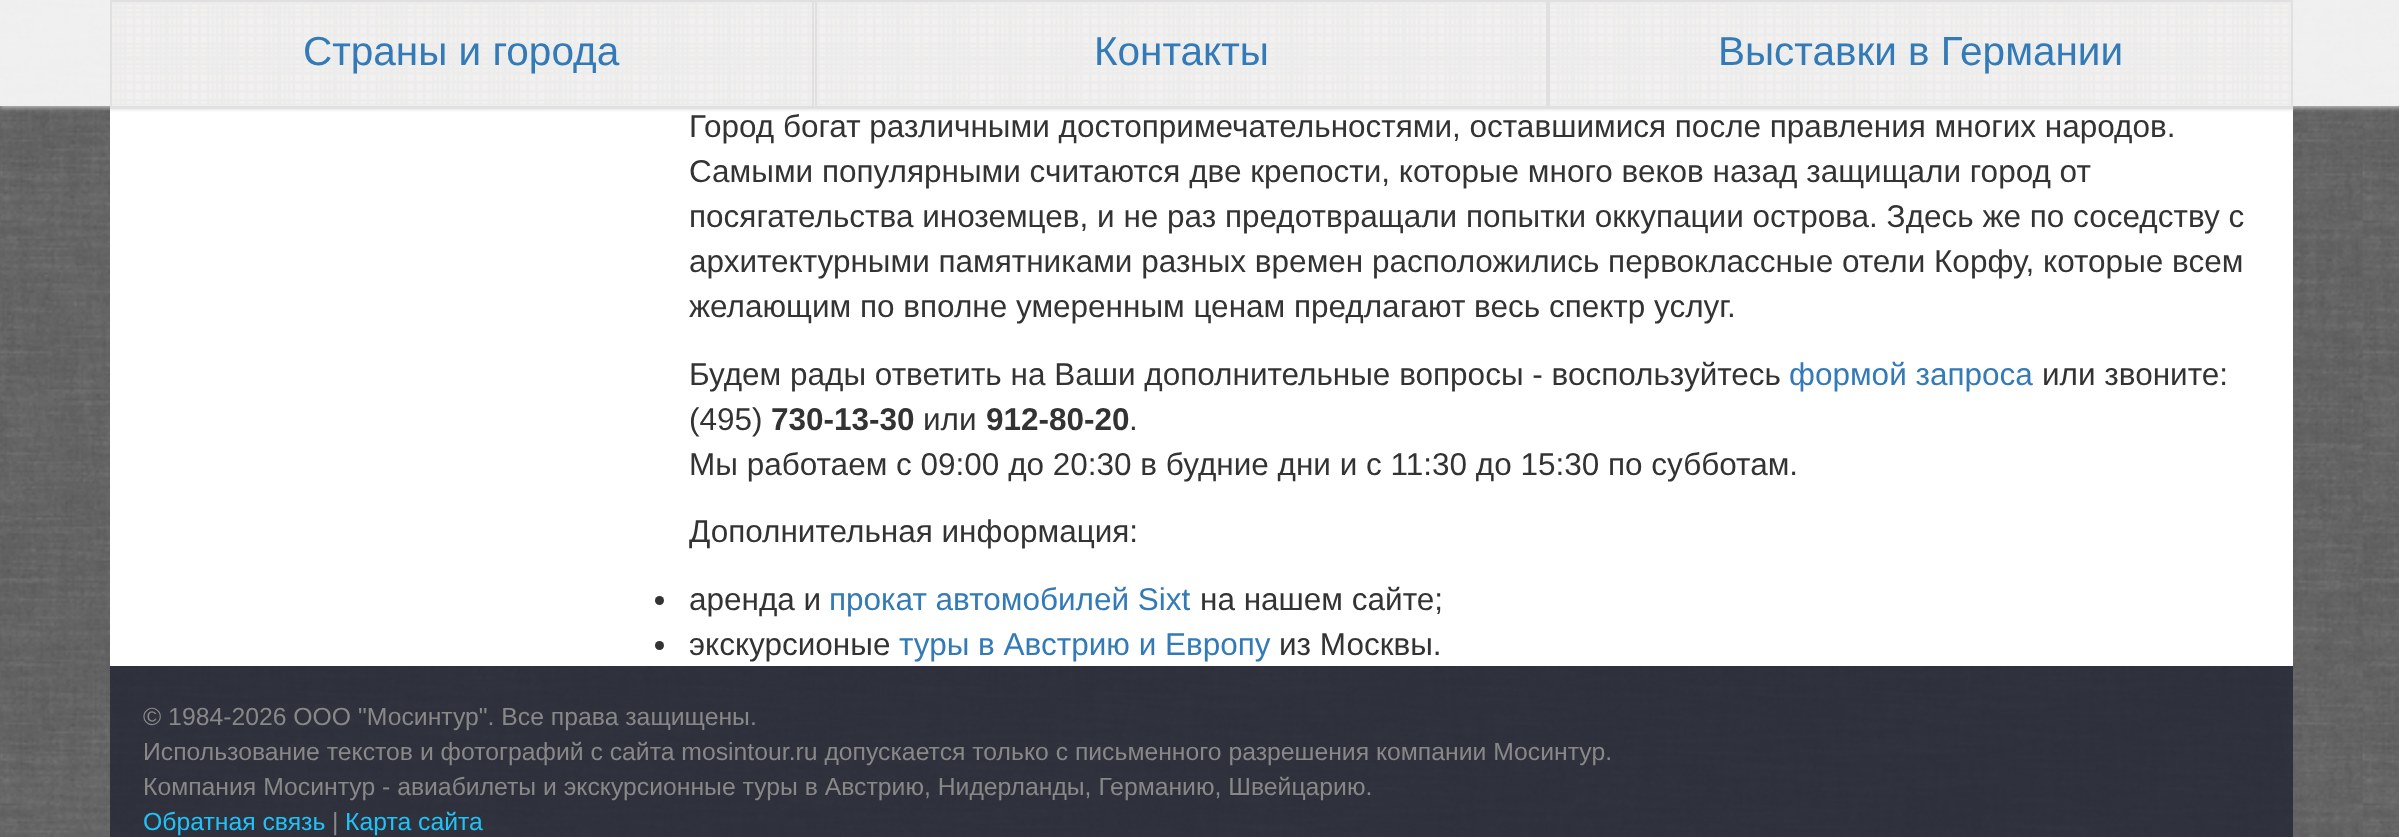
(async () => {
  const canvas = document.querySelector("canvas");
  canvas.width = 2399;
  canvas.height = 837;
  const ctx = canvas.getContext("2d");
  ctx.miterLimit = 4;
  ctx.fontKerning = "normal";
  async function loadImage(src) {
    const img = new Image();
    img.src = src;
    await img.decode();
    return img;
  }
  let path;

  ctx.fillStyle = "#ffffff";
  ctx.fillRect(0, 0, 2399, 837);
  ctx.drawImage(await loadImage("img/1.png"), 0, 0, 2399, 837);
  ctx.fillRect(110, 108, 2183, 558);
  ctx.save();
  path = new Path2D("M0 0H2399V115H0ZM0 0H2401V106H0Z");
  ctx.clip(path, "evenodd");
  ctx.fillStyle = "#bbbbbb";
  ctx.filter = "blur(2px)";
  ctx.beginPath();
  ctx.rect(0, 2, 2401, 106);
  ctx.fill();
  ctx.filter = "none";
  ctx.restore();
  ctx.fillStyle = "rgba(255, 255, 255, 0.9)";
  ctx.fillRect(0, 0, 2399, 106);
  ctx.drawImage(await loadImage("img/2.png"), 112, 2, 2179, 104);
  for (const [x, y, w, h, color] of [
    [110, 0, 2183, 2, "#e0e0e0"],
    [110, 106, 2183, 2, "#e0e0e0"],
    [812, 2, 2, 104, "#e0e0e0"],
    [110, 2, 2, 104, "#e0e0e0"],
    [1546, 2, 4, 104, "#e0e0e0"],
    [815, 2, 2, 104, "#e0e0e0"],
    [2291, 2, 2, 104, "#e0e0e0"],
  ]) {
    ctx.fillStyle = color;
    ctx.fillRect(x, y, w, h);
  }
  ctx.fillStyle = "#333333";
  ctx.beginPath();
  ctx.arc(659.5, 600.5, 4.5, 0, Math.PI * 2);
  ctx.fill();
  ctx.beginPath();
  ctx.arc(659.5, 645.5, 4.5, 0, Math.PI * 2);
  ctx.fill();
  ctx.fillStyle = "rgba(34, 37, 51, 0.8)";
  ctx.fillRect(110, 666, 2183, 171);
  ctx.font = "40.5px Liberation Sans";
  ctx.fillStyle = "#337ab7";
  for (const [text, x, y] of [
    ["Страны и города", 303, 65],
    ["Контакты", 1094, 65],
    ["Выставки в Германии", 1718, 65],
  ]) {
    ctx.fillText(text, x, y);
  }
  ctx.font = "31.5px Liberation Sans";
  ctx.fillStyle = "#333333";
  for (const [text, x, y] of [
    ["Город богат различными достопримечательностями, оставшимися после правления многих народов.", 689, 137],
    ["Самыми популярными считаются две крепости, которые много веков назад защищали город от", 689, 182],
    ["посягательства иноземцев, и не раз предотвращали попытки оккупации острова. Здесь же по соседству с", 689, 227],
    ["архитектурными памятниками разных времен расположились первоклассные отели Корфу, которые всем", 689, 272],
    ["желающим по вполне умеренным ценам предлагают весь спектр услуг.", 689, 317],
    ["Будем рады ответить на Ваши дополнительные вопросы - воспользуйтесь", 689, 385],
  ]) {
    ctx.fillText(text, x, y);
  }
  ctx.fillStyle = "#337ab7";
  ctx.fillText("формой запроса", 1789, 385);
  ctx.fillStyle = "#333333";
  ctx.fillText("или звоните:", 2042, 385);
  ctx.fillText("(495)", 689, 430);
  ctx.font = "bold 31.5px Liberation Sans";
  ctx.fillText("730-13-30", 771, 430);
  ctx.font = "31.5px Liberation Sans";
  ctx.fillText("или", 923, 430);
  ctx.font = "bold 31.5px Liberation Sans";
  ctx.fillText("912-80-20", 986, 430);
  ctx.font = "31.5px Liberation Sans";
  for (const [text, x, y] of [
    [".", 1129, 430],
    ["Мы работаем с 09:00 до 20:30 в будние дни и с 11:30 до 15:30 по субботам.", 689, 475],
    ["Дополнительная информация:", 689, 542],
    ["аренда и", 689, 610],
  ]) {
    ctx.fillText(text, x, y);
  }
  ctx.fillStyle = "#337ab7";
  ctx.fillText("прокат автомобилей Sixt", 829, 610);
  ctx.fillStyle = "#333333";
  ctx.fillText("на нашем сайте;", 1200, 610);
  ctx.fillText("экскурсионые", 689, 655);
  ctx.fillStyle = "#337ab7";
  ctx.fillText("туры в Австрию и Европу", 899, 655);
  ctx.fillStyle = "#333333";
  ctx.fillText("из Москвы.", 1279, 655);
  ctx.font = "24.75px Liberation Sans";
  ctx.fillStyle = "#888888";
  for (const [text, x, y] of [
    ["© 1984-2026 ООО \"Мосинтур\". Все права защищены.", 143, 725],
    ["Использование текстов и фотографий с сайта mosintour.ru допускается только с письменного разрешения компании Мосинтур.", 143, 760],
    ["Компания Мосинтур - авиабилеты и экскурсионные туры в Австрию, Нидерланды, Германию, Швейцарию.", 143, 795],
  ]) {
    ctx.fillText(text, x, y);
  }
  ctx.fillStyle = "#21c2f8";
  ctx.fillText("Обратная связь", 143, 830);
  ctx.fillStyle = "#888888";
  ctx.fillText("|", 332, 830);
  ctx.fillStyle = "#21c2f8";
  ctx.fillText("Карта сайта", 345, 830);
})();
